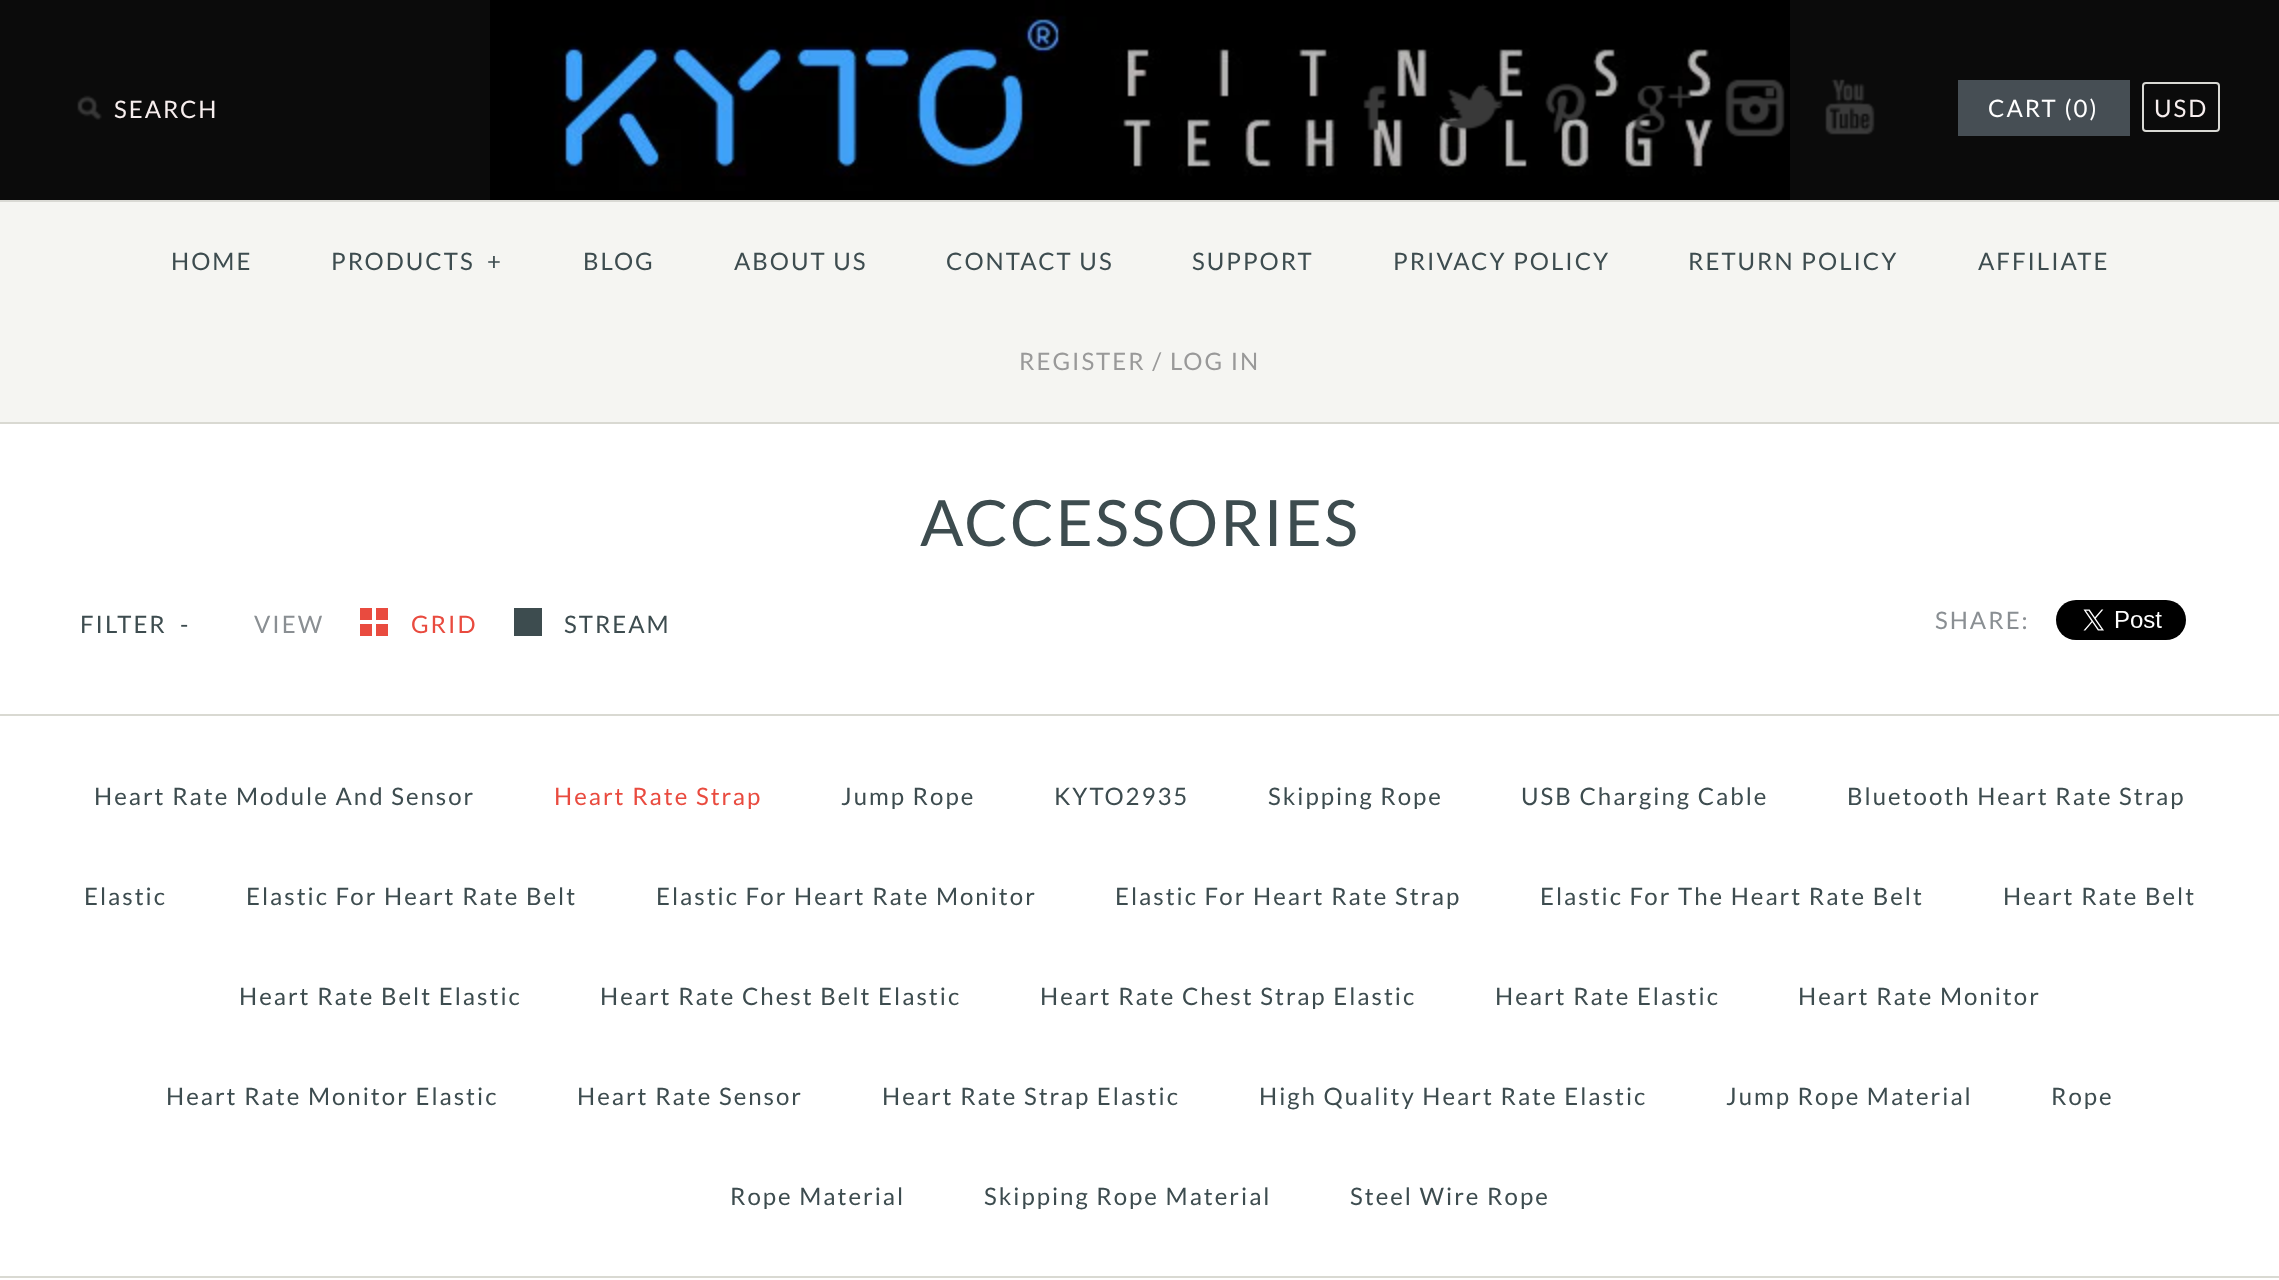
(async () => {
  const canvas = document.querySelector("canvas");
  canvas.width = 2279;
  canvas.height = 1280;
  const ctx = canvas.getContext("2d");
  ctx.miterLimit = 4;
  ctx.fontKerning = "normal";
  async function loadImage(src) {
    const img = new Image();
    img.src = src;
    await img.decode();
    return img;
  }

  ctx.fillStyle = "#ffffff";
  ctx.fillRect(0, 0, 2279, 1280);
  ctx.fillStyle = "#0b0b0b";
  ctx.fillRect(0, 0, 2279, 200);
  ctx.drawImage(await loadImage("img/1.png"), 490, 0, 1300, 200);
  ctx.drawImage(await loadImage("img/2.png"), 77, 95, 25, 25);
  ctx.drawImage(await loadImage("img/3.png"), 1363, 85, 24, 46);
  ctx.drawImage(await loadImage("img/4.png"), 1439, 83, 65, 48);
  ctx.drawImage(await loadImage("img/5.png"), 1545, 83, 42, 51);
  ctx.drawImage(await loadImage("img/6.png"), 1633, 85, 60, 50);
  ctx.drawImage(await loadImage("img/7.png"), 1725, 79, 60, 58);
  ctx.drawImage(await loadImage("img/8.png"), 1825, 79, 50, 56);
  ctx.fillStyle = "#464e54";
  ctx.fillRect(1958, 80, 172, 56);
  ctx.beginPath();
  ctx.roundRect(2143, 83, 76, 48, 3);
  ctx.strokeStyle = "#d9d9d4";
  ctx.lineWidth = 2;
  ctx.stroke();
  for (const [x, y, w, h, color] of [
    [0, 422, 2279, 2, "#d9d9d2"],
    [0, 202, 2279, 220, "#f5f5f2"],
    [0, 200, 2279, 2, "#d9d9d4"],
    [360, 608, 12, 12, "#e94b3f"],
    [376, 608, 12, 12, "#e94b3f"],
    [360, 624, 12, 12, "#e94b3f"],
    [376, 624, 12, 12, "#e94b3f"],
    [514, 608, 28, 28, "#3d4c4f"],
  ]) {
    ctx.fillStyle = color;
    ctx.fillRect(x, y, w, h);
  }
  ctx.drawImage(await loadImage("img/9.png"), 2056, 600, 130, 40);
  ctx.fillStyle = "#d9d9d2";
  ctx.fillRect(0, 714, 2279, 2);
  ctx.fillRect(0, 1276, 2279, 2);
  ctx.letterSpacing = "2px";
  ctx.font = "24px Lato";
  ctx.fillStyle = "#f7eeee";
  ctx.fillText("SEARCH", 114, 118);
  ctx.fillStyle = "#ffffff";
  ctx.fillText("CART (0)", 1988, 117);
  ctx.fillStyle = "#f7eeee";
  ctx.fillText("USD", 2154, 117);
  ctx.fillStyle = "#3d4c4f";
  for (const [text, x, y] of [
    ["HOME", 171, 270],
    ["PRODUCTS", 331, 270],
    ["+", 487, 270],
    ["BLOG", 583, 270],
    ["ABOUT US", 734, 270],
    ["CONTACT US", 946, 270],
    ["SUPPORT", 1192, 270],
    ["PRIVACY POLICY", 1393, 270],
    ["RETURN POLICY", 1688, 270],
    ["AFFILIATE", 1978, 270],
  ]) {
    ctx.fillText(text, x, y);
  }
  ctx.fillStyle = "#999999";
  ctx.fillText("REGISTER / LOG IN", 1019, 370);
  ctx.font = "64px Lato";
  ctx.fillStyle = "#3d4c4f";
  ctx.fillText("ACCESSORIES", 920, 546);
  ctx.font = "24px Lato";
  ctx.fillText("FILTER", 80, 633);
  ctx.fillText("-", 180, 633);
  ctx.fillStyle = "#8a8f93";
  ctx.fillText("VIEW", 254, 633);
  ctx.fillStyle = "#e94b3f";
  ctx.fillText("GRID", 411, 633);
  ctx.fillStyle = "#3d4c4f";
  ctx.fillText("STREAM", 564, 633);
  ctx.fillStyle = "#8a8f93";
  ctx.fillText("SHARE:", 1935, 629);
  ctx.fillStyle = "#3d4c4f";
  ctx.fillText("Heart Rate Module And Sensor", 94, 805);
  ctx.fillStyle = "#e94b3f";
  ctx.fillText("Heart Rate Strap", 554, 805);
  ctx.fillStyle = "#3d4c4f";
  for (const [text, x, y] of [
    ["Jump Rope", 841, 805],
    ["KYTO2935", 1054, 805],
    ["Skipping Rope", 1268, 805],
    ["USB Charging Cable", 1521, 805],
    ["Bluetooth Heart Rate Strap", 1847, 805],
    ["Elastic", 84, 905],
    ["Elastic For Heart Rate Belt", 246, 905],
    ["Elastic For Heart Rate Monitor", 656, 905],
    ["Elastic For Heart Rate Strap", 1115, 905],
    ["Elastic For The Heart Rate Belt", 1540, 905],
    ["Heart Rate Belt", 2003, 905],
    ["Heart Rate Belt Elastic", 239, 1005],
    ["Heart Rate Chest Belt Elastic", 600, 1005],
    ["Heart Rate Chest Strap Elastic", 1040, 1005],
    ["Heart Rate Elastic", 1495, 1005],
    ["Heart Rate Monitor", 1798, 1005],
    ["Heart Rate Monitor Elastic", 166, 1105],
    ["Heart Rate Sensor", 577, 1105],
    ["Heart Rate Strap Elastic", 882, 1105],
    ["High Quality Heart Rate Elastic", 1259, 1105],
    ["Jump Rope Material", 1726, 1105],
    ["Rope", 2051, 1105],
    ["Rope Material", 730, 1205],
    ["Skipping Rope Material", 984, 1205],
    ["Steel Wire Rope", 1350, 1205],
  ]) {
    ctx.fillText(text, x, y);
  }
})();
